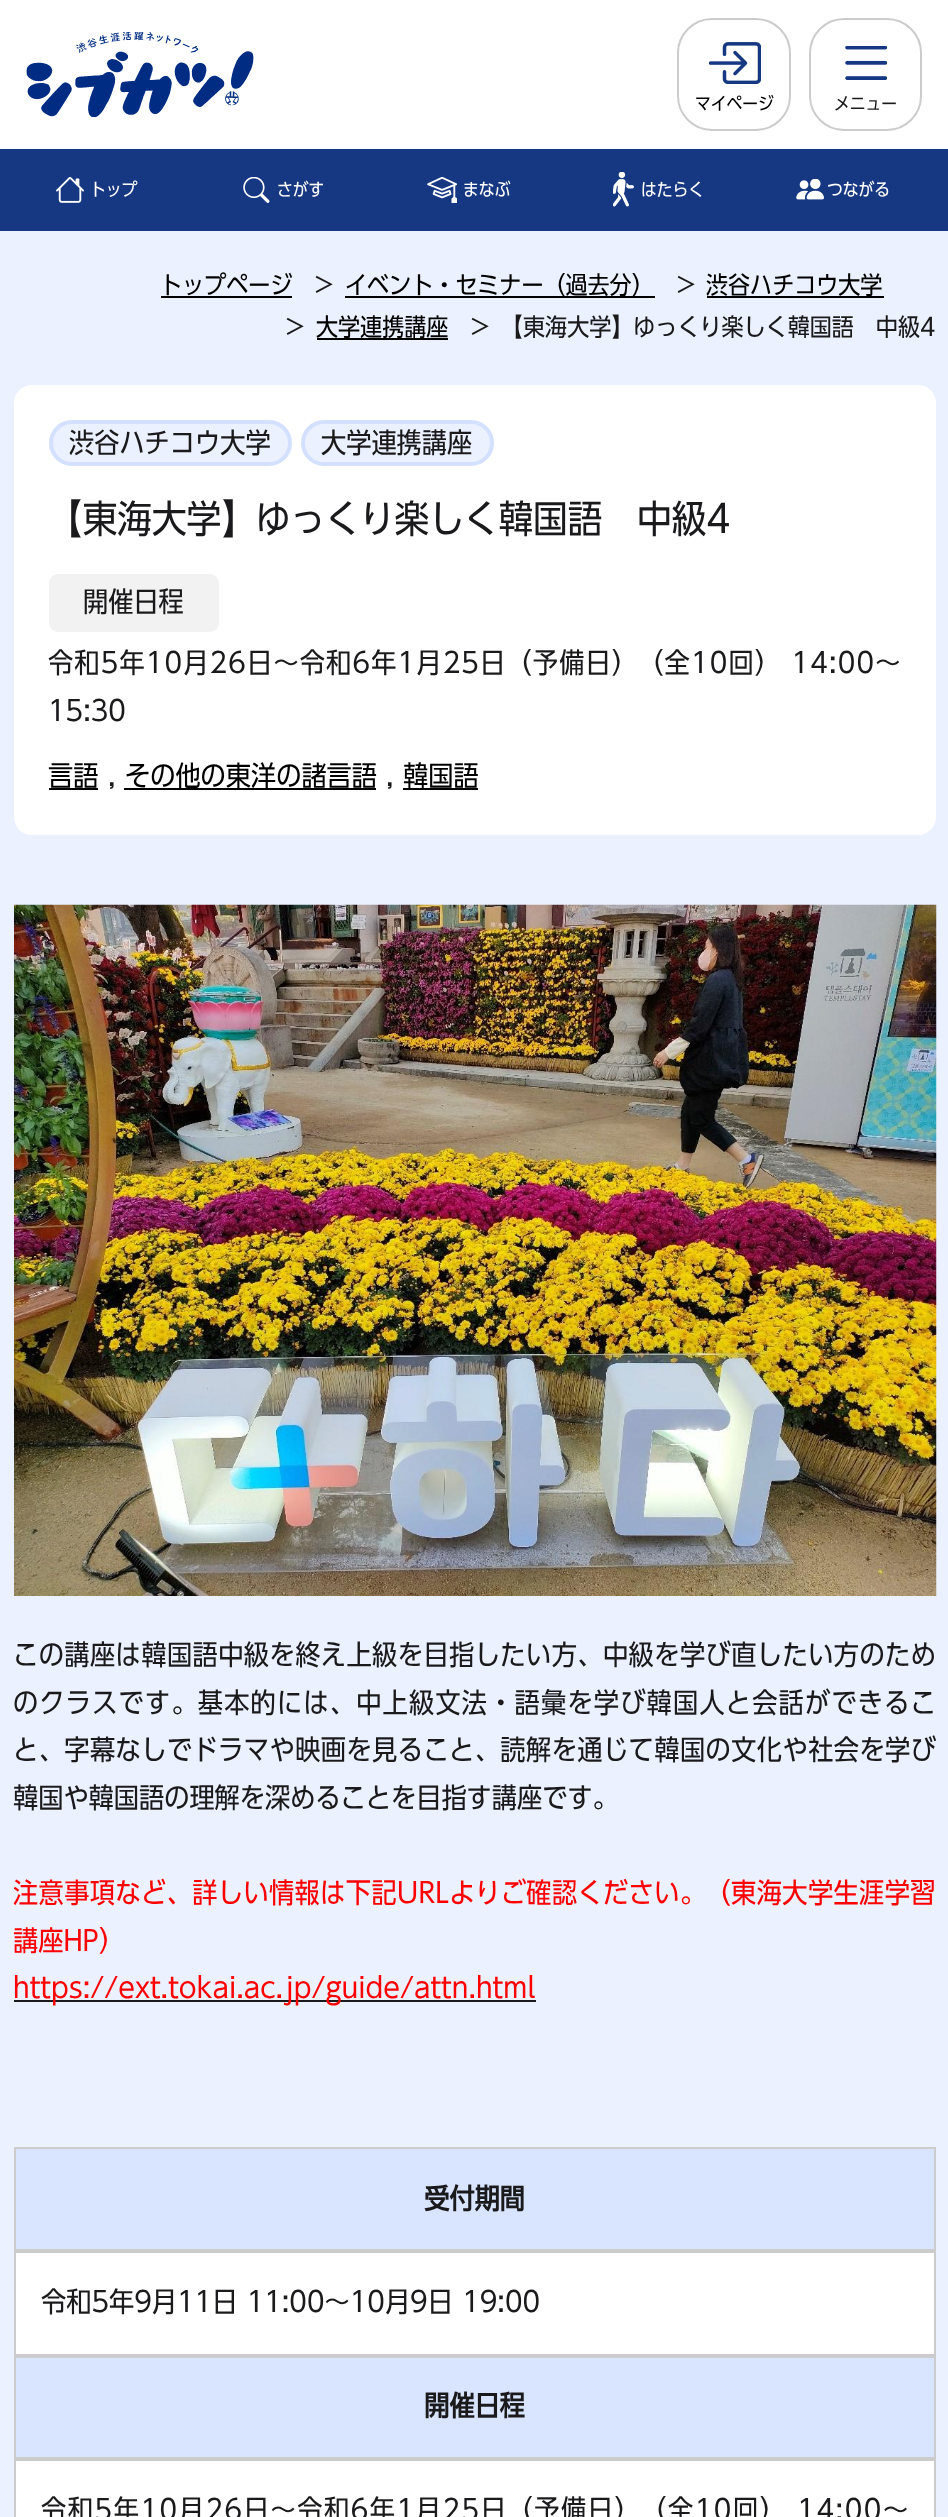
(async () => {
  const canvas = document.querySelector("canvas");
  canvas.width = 948;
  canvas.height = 2517;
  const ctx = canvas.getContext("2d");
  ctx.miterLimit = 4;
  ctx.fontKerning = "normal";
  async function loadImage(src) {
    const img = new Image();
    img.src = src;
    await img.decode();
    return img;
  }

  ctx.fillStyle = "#ffffff";
  ctx.fillRect(0, 0, 948, 2517);
  ctx.drawImage(await loadImage("img/1.png"), 26, 32, 228, 85);
  ctx.drawImage(await loadImage("img/2.png"), 709, 42, 52, 42);
  ctx.beginPath();
  ctx.roundRect(678, 19, 112, 111, 34);
  ctx.strokeStyle = "#cccccc";
  ctx.lineWidth = 2;
  ctx.stroke();
  ctx.drawImage(await loadImage("img/3.png"), 845, 46, 42, 34);
  ctx.beginPath();
  ctx.roundRect(810, 19, 111, 111, 34);
  ctx.stroke();
  ctx.fillStyle = "#163781";
  ctx.fillRect(0, 149, 948, 82);
  ctx.drawImage(await loadImage("img/4.png"), 56, 177, 28, 26);
  ctx.drawImage(await loadImage("img/5.png"), 243, 177, 27, 26);
  ctx.drawImage(await loadImage("img/6.png"), 427, 177, 30, 26);
  ctx.drawImage(await loadImage("img/7.png"), 613, 172, 21, 35);
  ctx.drawImage(await loadImage("img/8.png"), 796, 179, 28, 21);
  for (const [x, y, w, h, color] of [
    [0, 231, 948, 2286, "#ebf1ff"],
    [161, 296, 131, 2, "#000000"],
    [345, 296, 310, 2, "#000000"],
    [707, 296, 177, 2, "#000000"],
    [317, 338, 131, 2, "#000000"],
  ]) {
    ctx.fillStyle = color;
    ctx.fillRect(x, y, w, h);
  }
  ctx.fillStyle = "#ffffff";
  ctx.beginPath();
  ctx.roundRect(14, 385, 922, 450, 18);
  ctx.fill();
  ctx.fillStyle = "#ebf1ff";
  ctx.beginPath();
  ctx.roundRect(51, 422, 239, 42, 21);
  ctx.fill();
  ctx.strokeStyle = "#d3e0ff";
  ctx.lineWidth = 4;
  ctx.stroke();
  ctx.beginPath();
  ctx.roundRect(303, 422, 189, 42, 21);
  ctx.fill();
  ctx.stroke();
  ctx.fillStyle = "#f2f2f2";
  ctx.beginPath();
  ctx.roundRect(49, 574, 170, 58, 9);
  ctx.fill();
  for (const [x, y, w, h, color] of [
    [49, 788, 49, 2, "#000000"],
    [124, 788, 252, 2, "#000000"],
    [403, 788, 75, 2, "#000000"],
  ]) {
    ctx.fillStyle = color;
    ctx.fillRect(x, y, w, h);
  }
  ctx.drawImage(await loadImage("img/9.png"), 14, 904, 923, 692);
  ctx.fillStyle = "#1a1a1c";
  ctx.fillRect(14, 2000, 522, 2);
  ctx.fillStyle = "#d9e5ff";
  ctx.beginPath();
  ctx.rect(15, 2148, 920, 102);
  ctx.fill();
  ctx.strokeStyle = "#cccccc";
  ctx.lineWidth = 2;
  ctx.stroke();
  ctx.fillStyle = "#ffffff";
  ctx.beginPath();
  ctx.rect(15, 2252, 920, 103);
  ctx.fill();
  ctx.stroke();
  ctx.fillStyle = "#d9e5ff";
  ctx.beginPath();
  ctx.rect(15, 2357, 920, 101);
  ctx.fill();
  ctx.stroke();
  ctx.fillStyle = "#ffffff";
  ctx.beginPath();
  ctx.rect(15, 2460, 920, 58);
  ctx.fill();
  ctx.stroke();
  ctx.font = "17.5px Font";
  ctx.fillStyle = "#000000";
  ctx.fillText("マイページ", 695, 110);
  ctx.fillStyle = "#1a1a1c";
  ctx.fillText("メニュー", 834, 110);
  ctx.fillStyle = "#ffffff";
  for (const [text, x, y] of [
    ["トップ", 90, 196],
    ["さがす", 277, 196],
    ["まなぶ", 463, 196],
    ["はたらく", 641, 196],
    ["つながる", 827, 196],
  ]) {
    ctx.fillText(text, x, y);
  }
  ctx.font = "24.5px Font";
  ctx.fillStyle = "#000000";
  ctx.fillText("トップページ", 160, 294);
  ctx.fillStyle = "#1a1a1c";
  ctx.fillText(">", 315, 294);
  ctx.fillStyle = "#000000";
  ctx.fillText("イベント・セミナー（過去分）", 345, 294);
  ctx.fillStyle = "#1a1a1c";
  ctx.fillText(">", 677, 294);
  ctx.fillStyle = "#000000";
  ctx.fillText("渋谷ハチコウ大学", 706, 294);
  ctx.fillStyle = "#1a1a1c";
  ctx.fillText(">", 286, 336);
  ctx.fillStyle = "#000000";
  ctx.fillText("大学連携講座", 316, 336);
  ctx.fillStyle = "#1a1a1c";
  ctx.fillText(">", 471, 336);
  ctx.fillText("【東海大学】ゆっくり楽しく韓国語　中級4", 501, 336);
  ctx.font = "28px Font";
  ctx.fillText("渋谷ハチコウ大学", 69, 453);
  ctx.fillText("大学連携講座", 321, 453);
  ctx.font = "38.5px Font";
  ctx.fillText("【東海大学】ゆっくり楽しく韓国語　中級4", 48, 533);
  ctx.font = "28px Font";
  ctx.fillText("開催日程", 83, 612);
  ctx.letterSpacing = "1.15px";
  ctx.fillText("令和5年10月26日～令和6年1月25日（予備日）（全10回） 14:00～", 48, 673);
  ctx.letterSpacing = "0px";
  ctx.fillText("15:30", 48, 721);
  ctx.fillStyle = "#000000";
  ctx.fillText("言語", 48, 786);
  ctx.fillStyle = "#1a1a1c";
  ctx.fillText(",", 108, 786);
  ctx.fillStyle = "#000000";
  ctx.fillText("その他の東洋の諸言語", 125, 786);
  ctx.fillStyle = "#1a1a1c";
  ctx.fillText(",", 386, 786);
  ctx.fillStyle = "#000000";
  ctx.fillText("韓国語", 403, 786);
  ctx.letterSpacing = "0.45px";
  ctx.fillStyle = "#1a1a1c";
  ctx.fillText("この講座は韓国語中級を終え上級を目指したい方、中級を学び直したい方のため", 13, 1665);
  ctx.letterSpacing = "1.2px";
  ctx.fillText("のクラスです。基本的には、中上級文法・語彙を学び韓国人と会話ができるこ", 13, 1713);
  ctx.letterSpacing = "0.45px";
  ctx.fillText("と、字幕なしでドラマや映画を見ること、読解を通じて韓国の文化や社会を学び", 13, 1760);
  ctx.letterSpacing = "0px";
  ctx.fillText("韓国や韓国語の理解を深めることを目指す講座です。", 13, 1808);
  ctx.letterSpacing = "0.4px";
  ctx.fillStyle = "#ff0000";
  ctx.fillText("注意事項など、詳しい情報は下記URLよりご確認ください。（東海大学生涯学習", 13, 1903);
  ctx.letterSpacing = "0px";
  ctx.fillText("講座HP）", 13, 1951);
  ctx.fillText("https://ext.tokai.ac.jp/guide/attn.html", 13, 1998);
  ctx.font = "bold 28px Font";
  ctx.fillStyle = "#1a1a1c";
  ctx.fillText("受付期間", 424, 2209);
  ctx.font = "28px Font";
  ctx.fillText("令和5年9月11日 11:00～10月9日 19:00", 41, 2312);
  ctx.font = "bold 28px Font";
  ctx.fillText("開催日程", 424, 2416);
  ctx.letterSpacing = "1.55px";
  ctx.font = "28px Font";
  ctx.fillText("令和5年10月26日～令和6年1月25日（予備日）（全10回） 14:00～", 41, 2520);
})();
